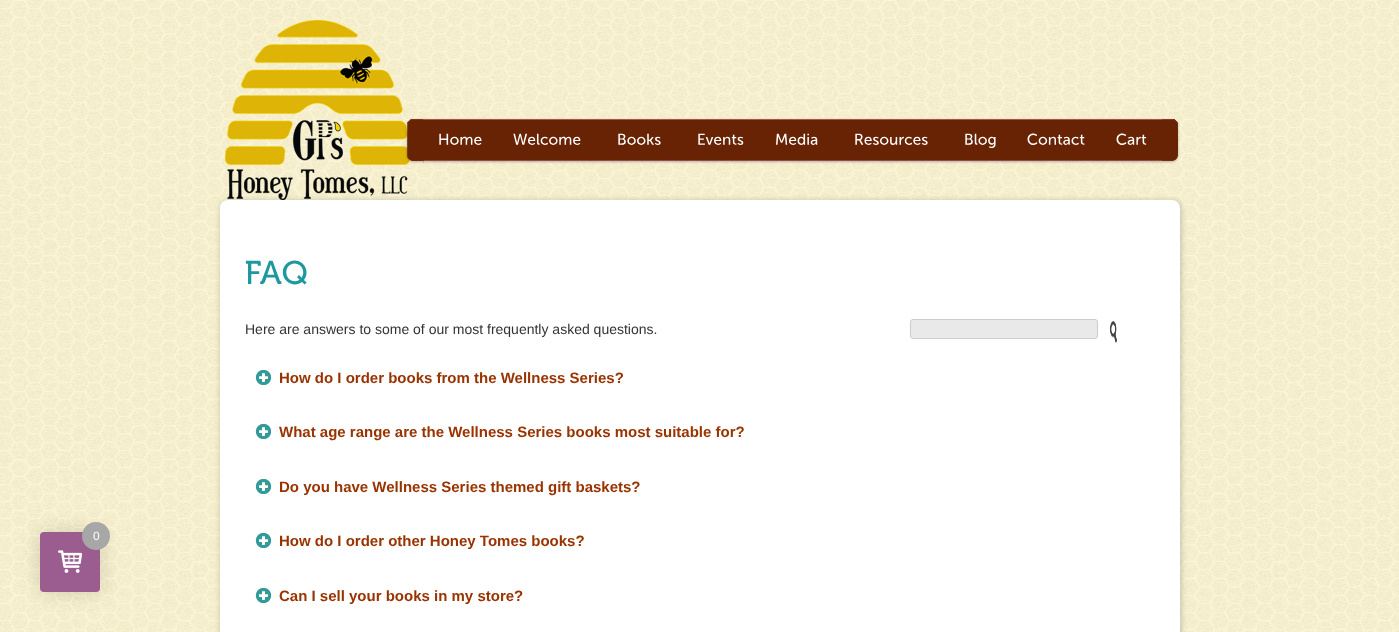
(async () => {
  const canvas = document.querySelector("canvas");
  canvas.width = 1399;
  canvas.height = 632;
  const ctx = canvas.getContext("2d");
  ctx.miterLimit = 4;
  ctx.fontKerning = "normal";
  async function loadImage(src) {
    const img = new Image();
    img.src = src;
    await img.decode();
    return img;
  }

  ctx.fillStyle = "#ffffff";
  ctx.fillRect(0, 0, 1399, 632);
  ctx.drawImage(await loadImage("img/2.png"), 0, 0, 1399, 632);
  ctx.fillStyle = "rgba(0, 0, 0, 0.15)";
  ctx.filter = "blur(10px)";
  ctx.beginPath();
  ctx.roundRect(40, 532, 60, 60, 4);
  ctx.fill();
  ctx.filter = "none";
  ctx.fillStyle = "#9b5c8f";
  ctx.beginPath();
  ctx.roundRect(40, 532, 60, 60, 4);
  ctx.fill();
  ctx.fillStyle = "#a7a7a7";
  ctx.beginPath();
  ctx.arc(96, 536, 14, 0, Math.PI * 2);
  ctx.fill();
  ctx.drawImage(await loadImage("img/1.png"), 58, 550, 25, 23);
  ctx.fillStyle = "rgba(102, 102, 102, 0.4)";
  ctx.filter = "blur(3px)";
  ctx.beginPath();
  ctx.roundRect(221, 201, 960, 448, 8);
  ctx.fill();
  ctx.filter = "none";
  ctx.drawImage(await loadImage("img/3.png"), 225, 20, 185, 180);
  ctx.drawImage(await loadImage("img/4.png"), 405, 118, 19, 46);
  ctx.drawImage(await loadImage("img/5.png"), 423, 118, 739, 46);
  ctx.drawImage(await loadImage("img/6.png"), 439, 133, 43, 12);
  ctx.drawImage(await loadImage("img/7.png"), 513, 133, 68, 12);
  ctx.drawImage(await loadImage("img/8.png"), 618, 133, 43, 12);
  ctx.drawImage(await loadImage("img/9.png"), 698, 133, 46, 12);
  ctx.drawImage(await loadImage("img/10.png"), 776, 133, 42, 12);
  ctx.drawImage(await loadImage("img/11.png"), 855, 133, 73, 12);
  ctx.drawImage(await loadImage("img/12.png"), 965, 133, 31, 15);
  ctx.drawImage(await loadImage("img/13.png"), 1027, 133, 58, 12);
  ctx.drawImage(await loadImage("img/14.png"), 1116, 133, 31, 12);
  ctx.drawImage(await loadImage("img/15.png"), 1162, 118, 18, 46);
  ctx.fillStyle = "#ffffff";
  ctx.beginPath();
  ctx.roundRect(220, 200, 960, 432, [8, 8, 0, 0]);
  ctx.fill();
  ctx.drawImage(await loadImage("img/16.png"), 245, 260, 62, 25);
  ctx.drawImage(await loadImage("img/17.png"), 255, 370, 16, 15);
  ctx.drawImage(await loadImage("img/17.png"), 255, 424, 16, 15);
  ctx.drawImage(await loadImage("img/17.png"), 255, 479, 16, 15);
  ctx.drawImage(await loadImage("img/17.png"), 255, 533, 16, 15);
  ctx.drawImage(await loadImage("img/17.png"), 255, 588, 16, 15);
  ctx.fillStyle = "#e9e9e9";
  ctx.beginPath();
  ctx.roundRect(910.5, 319.5, 187, 19, 2.5);
  ctx.fill();
  ctx.strokeStyle = "#cccccc";
  ctx.stroke();
  ctx.drawImage(await loadImage("img/18.png"), 1110, 321, 7, 22);
  ctx.font = "12px Liberation Sans";
  ctx.fillStyle = "#ffffff";
  ctx.fillText("0", 93, 540);
  ctx.font = "14px Liberation Sans";
  ctx.fillStyle = "#333333";
  ctx.fillText("Here are answers to some of our most frequently asked questions.", 245, 334);
  ctx.font = "bold 15px Liberation Sans";
  ctx.fillStyle = "#993300";
  for (const [text, x, y] of [
    ["How do I order books from the Wellness Series?", 279, 383],
    ["What age range are the Wellness Series books most suitable for?", 279, 437],
    ["Do you have Wellness Series themed gift baskets?", 279, 492],
    ["How do I order other Honey Tomes books?", 279, 546],
    ["Can I sell your books in my store?", 279, 601],
  ]) {
    ctx.fillText(text, x, y);
  }
})();
